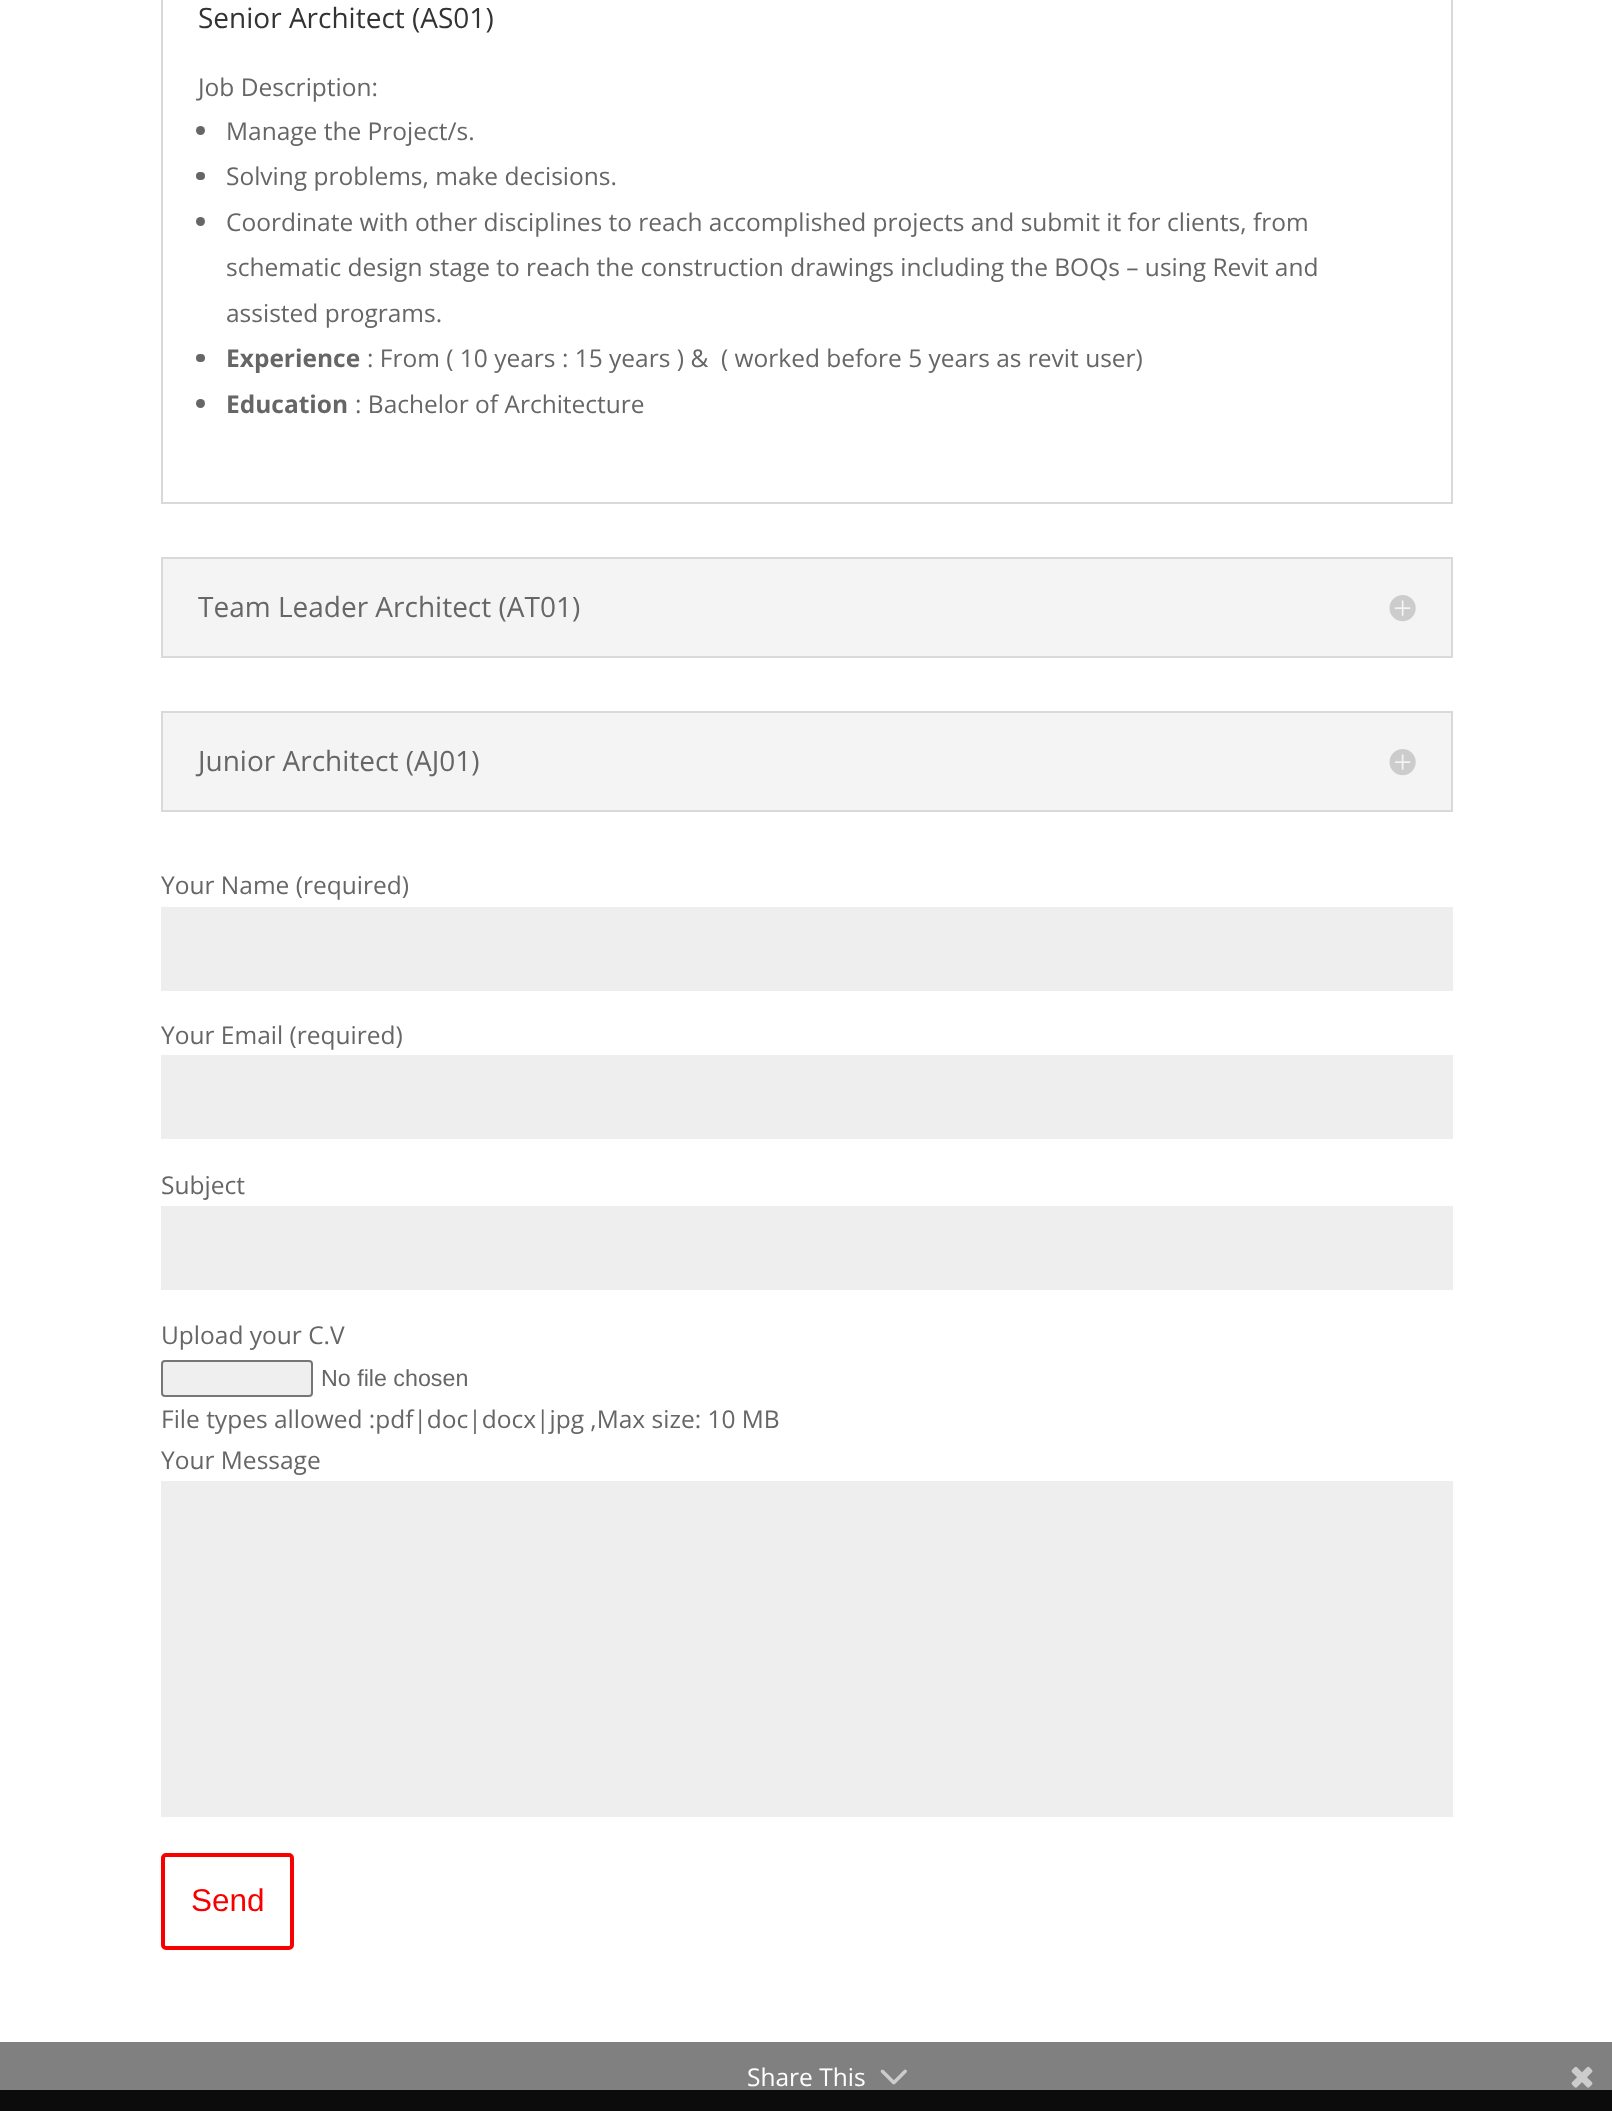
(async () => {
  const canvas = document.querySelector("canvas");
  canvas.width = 1612;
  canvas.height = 2111;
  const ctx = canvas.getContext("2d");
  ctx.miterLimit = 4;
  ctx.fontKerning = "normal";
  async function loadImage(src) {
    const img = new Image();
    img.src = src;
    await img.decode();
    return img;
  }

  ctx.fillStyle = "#ffffff";
  ctx.fillRect(0, 0, 1612, 2111);
  ctx.fillStyle = "#808080";
  ctx.fillRect(0, 2042, 1612, 48);
  ctx.strokeStyle = "#d9d9d9";
  ctx.lineWidth = 2;
  ctx.strokeRect(162, -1, 1290, 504);
  ctx.fillStyle = "#666666";
  ctx.beginPath();
  ctx.arc(200.5, 130.5, 4.5, 0, Math.PI * 2);
  ctx.fill();
  ctx.beginPath();
  ctx.roundRect(196, 172, 9, 8, 4);
  ctx.fill();
  ctx.beginPath();
  ctx.arc(200.5, 221.5, 4.5, 0, Math.PI * 2);
  ctx.fill();
  ctx.beginPath();
  ctx.roundRect(196, 354, 9, 8, 4);
  ctx.fill();
  ctx.beginPath();
  ctx.arc(200.5, 403.5, 4.5, 0, Math.PI * 2);
  ctx.fill();
  ctx.fillStyle = "#f4f4f4";
  ctx.beginPath();
  ctx.rect(162, 558, 1290, 99);
  ctx.fill();
  ctx.stroke();
  ctx.drawImage(await loadImage("img/1.png"), 1389, 595, 27, 27);
  ctx.beginPath();
  ctx.rect(162, 712, 1290, 99);
  ctx.fill();
  ctx.stroke();
  ctx.drawImage(await loadImage("img/1.png"), 1389, 749, 27, 27);
  for (const [x, y, w, h, color] of [
    [161, 907, 1292, 84, "#eeeeee"],
    [161, 1055, 1292, 84, "#eeeeee"],
    [161, 1206, 1292, 84, "#eeeeee"],
  ]) {
    ctx.fillStyle = color;
    ctx.fillRect(x, y, w, h);
  }
  ctx.fillStyle = "#efefef";
  ctx.beginPath();
  ctx.roundRect(162, 1361, 150, 35, 3);
  ctx.fill();
  ctx.strokeStyle = "#767676";
  ctx.stroke();
  ctx.fillStyle = "#eeeeee";
  ctx.fillRect(161, 1481, 1292, 336);
  ctx.beginPath();
  ctx.roundRect(163, 1855, 129, 93, 3);
  ctx.strokeStyle = "#f80000";
  ctx.lineWidth = 4;
  ctx.stroke();
  ctx.fillStyle = "#0c0c0c";
  ctx.fillRect(0, 2090, 1612, 21);
  ctx.drawImage(await loadImage("img/2.png"), 880, 2069, 27, 16);
  ctx.drawImage(await loadImage("img/3.png"), 1571, 2066, 22, 22);
  ctx.font = "28px Open Sans";
  ctx.fillStyle = "#333333";
  ctx.fillText("Senior Architect (AS01)", 198, 28);
  ctx.font = "24.5px Open Sans";
  ctx.fillStyle = "#666666";
  for (const [text, x, y] of [
    ["Job Description:", 198, 96],
    ["Manage the Project/s.", 226, 140],
    ["Solving problems, make decisions.", 226, 185],
    ["Coordinate with other disciplines to reach accomplished projects and submit it for clients, from", 226, 231],
    ["schematic design stage to reach the construction drawings including the BOQs – using Revit and", 226, 276],
    ["assisted programs.", 226, 322],
  ]) {
    ctx.fillText(text, x, y);
  }
  ctx.font = "bold 24.5px Open Sans";
  ctx.fillText("Experience", 226, 367);
  ctx.font = "24.5px Open Sans";
  ctx.fillText(": From ( 10 years : 15 years ) &  ( worked before 5 years as revit user)", 367, 367);
  ctx.font = "bold 24.5px Open Sans";
  ctx.fillText("Education", 226, 413);
  ctx.font = "24.5px Open Sans";
  ctx.fillText(": Bachelor of Architecture", 355, 413);
  ctx.font = "28px Open Sans";
  ctx.fillText("Team Leader Architect (AT01)", 198, 617);
  ctx.fillText("Junior Architect (AJ01)", 198, 771);
  ctx.font = "24.5px Open Sans";
  for (const [text, x, y] of [
    ["Your Name (required)", 161, 894],
    ["Your Email (required)", 161, 1044],
    ["Subject", 161, 1194],
    ["Upload your C.V", 161, 1344],
  ]) {
    ctx.fillText(text, x, y);
  }
  ctx.font = "23.25px Liberation Sans";
  ctx.fillText("No file chosen", 321, 1386);
  ctx.font = "24.5px Open Sans";
  ctx.fillText("File types allowed :pdf|doc|docx|jpg ,Max size: 10 MB", 161, 1428);
  ctx.fillText("Your Message", 161, 1469);
  ctx.font = "31.5px Liberation Sans";
  ctx.fillStyle = "#f80000";
  ctx.fillText("Send", 191, 1911);
  ctx.font = "24.5px Open Sans";
  ctx.fillStyle = "#ffffff";
  ctx.fillText("Share This", 747, 2086);
})();
